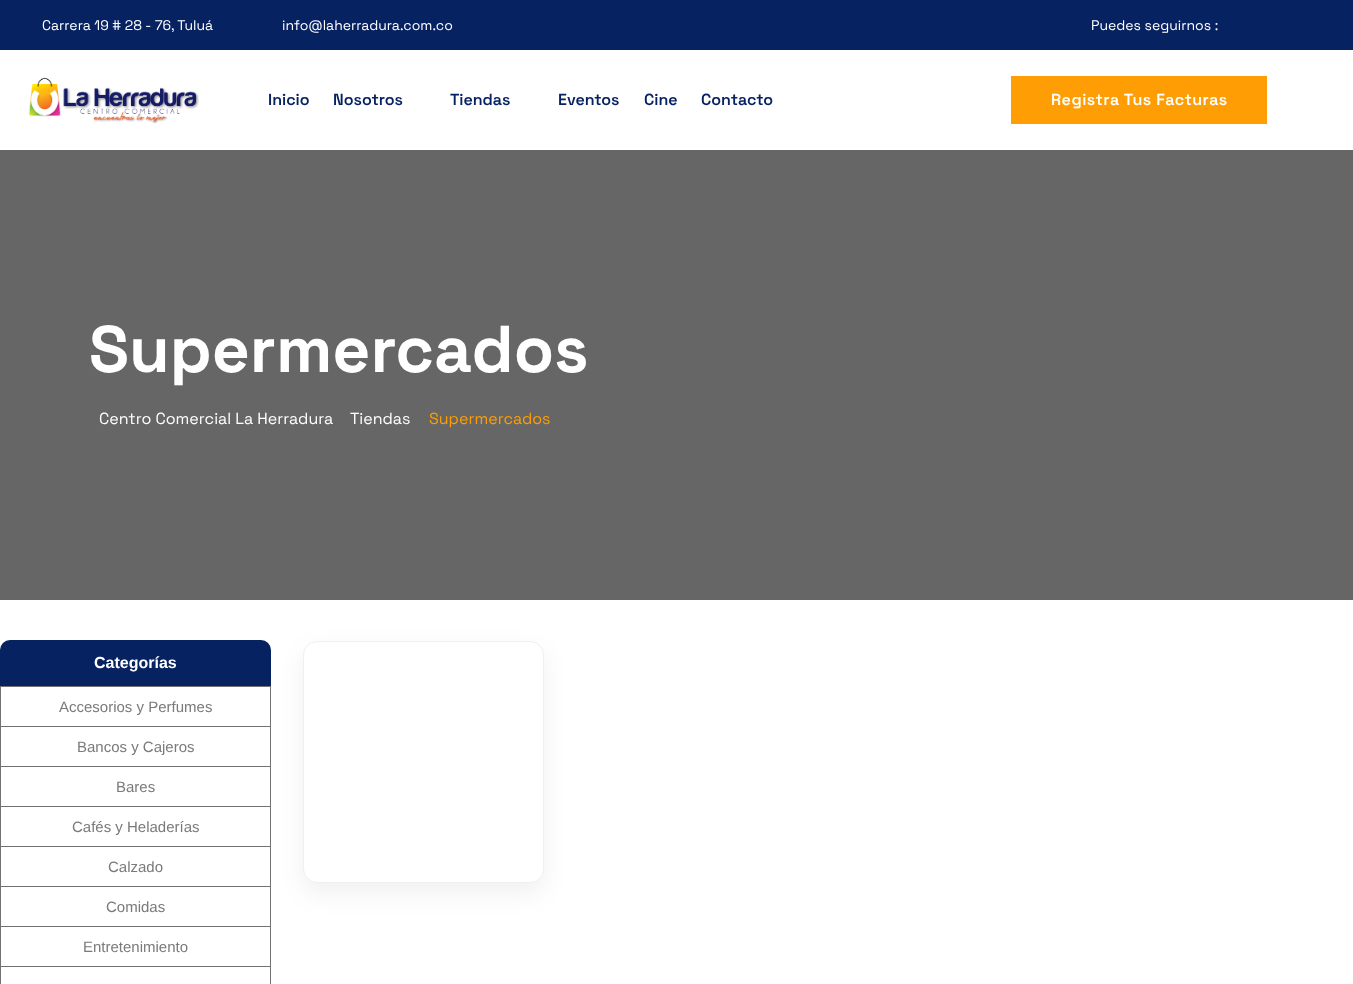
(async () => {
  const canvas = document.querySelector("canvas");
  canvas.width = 1353;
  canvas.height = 984;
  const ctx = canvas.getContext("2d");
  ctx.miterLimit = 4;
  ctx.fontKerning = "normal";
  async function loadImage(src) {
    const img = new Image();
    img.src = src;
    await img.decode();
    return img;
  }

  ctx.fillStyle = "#ffffff";
  ctx.fillRect(0, 0, 1353, 984);
  ctx.fillStyle = "#062261";
  ctx.fillRect(0, 0, 1353, 50);
  ctx.drawImage(await loadImage("img/1.png"), 29, 77, 170, 47);
  ctx.fillStyle = "#ff9e04";
  ctx.fillRect(1011, 76, 256, 48);
  ctx.fillStyle = "#666666";
  ctx.fillRect(0, 150, 1353, 450);
  ctx.fillStyle = "#062261";
  ctx.beginPath();
  ctx.roundRect(0, 640, 271, 46, [10, 10, 0, 0]);
  ctx.fill();
  for (const [x, y, w, h, color] of [
    [0, 686, 271, 1, "#727272"],
    [270, 686, 1, 40, "#727272"],
    [0, 686, 1, 40, "#727272"],
    [0, 726, 271, 1, "#727272"],
    [270, 726, 1, 40, "#727272"],
    [0, 726, 1, 40, "#727272"],
    [0, 766, 271, 1, "#727272"],
    [270, 766, 1, 40, "#727272"],
    [0, 766, 1, 40, "#727272"],
    [0, 806, 271, 1, "#727272"],
    [270, 806, 1, 40, "#727272"],
    [0, 806, 1, 40, "#727272"],
    [0, 846, 271, 1, "#727272"],
    [270, 846, 1, 40, "#727272"],
    [0, 846, 1, 40, "#727272"],
    [0, 886, 271, 1, "#727272"],
    [270, 886, 1, 40, "#727272"],
    [0, 886, 1, 40, "#727272"],
    [0, 926, 271, 1, "#727272"],
    [270, 926, 1, 40, "#727272"],
    [0, 926, 1, 40, "#727272"],
    [0, 966, 271, 1, "#727272"],
    [270, 966, 1, 18, "#727272"],
    [0, 966, 1, 18, "#727272"],
  ]) {
    ctx.fillStyle = color;
    ctx.fillRect(x, y, w, h);
  }
  ctx.fillStyle = "rgba(0, 0, 0, 0.06)";
  ctx.filter = "blur(12.5px)";
  ctx.beginPath();
  ctx.roundRect(303, 651, 241, 242, 14);
  ctx.fill();
  ctx.filter = "none";
  ctx.fillStyle = "#ffffff";
  ctx.beginPath();
  ctx.roundRect(303.5, 641.5, 240, 241, 13.5);
  ctx.fill();
  ctx.strokeStyle = "#f0f0f0";
  ctx.stroke();
  ctx.font = "14px Space Grotesk";
  for (const [text, x, y] of [
    ["Carrera 19 # 28 - 76, Tuluá", 42, 30],
    ["info@laherradura.com.co", 282, 30],
    ["Puedes seguirnos :", 1091, 30],
  ]) {
    ctx.fillText(text, x, y);
  }
  ctx.font = "600 16px Space Grotesk";
  ctx.fillStyle = "#062261";
  for (const [text, x, y] of [
    ["Inicio", 268, 105],
    ["Nosotros", 333, 105],
    ["Tiendas", 450, 105],
    ["Eventos", 558, 105],
    ["Cine", 644, 105],
    ["Contacto", 701, 105],
  ]) {
    ctx.fillText(text, x, y);
  }
  ctx.letterSpacing = "0.5px";
  ctx.fillStyle = "#ffffff";
  ctx.fillText("Registra Tus Facturas", 1051, 105);
  ctx.letterSpacing = "0px";
  ctx.font = "bold 66px Space Grotesk";
  ctx.fillText("Supermercados", 89, 372);
  ctx.font = "16px Space Grotesk";
  ctx.fillText("Centro Comercial La Herradura", 99, 424);
  ctx.fillText("Tiendas", 350, 424);
  ctx.fillStyle = "#ff9e04";
  ctx.fillText("Supermercados", 429, 424);
  ctx.font = "bold 16px Liberation Sans";
  ctx.fillStyle = "#ffffff";
  ctx.fillText("Categorías", 94, 668);
  ctx.font = "15px Liberation Sans";
  ctx.fillStyle = "#7a7a7a";
  for (const [text, x, y] of [
    ["Accesorios y Perfumes", 59, 712],
    ["Bancos y Cajeros", 77, 752],
    ["Bares", 116, 792],
    ["Cafés y Heladerías", 72, 832],
    ["Calzado", 108, 872],
    ["Comidas", 106, 912],
    ["Entretenimiento", 83, 952],
  ]) {
    ctx.fillText(text, x, y);
  }
})();
